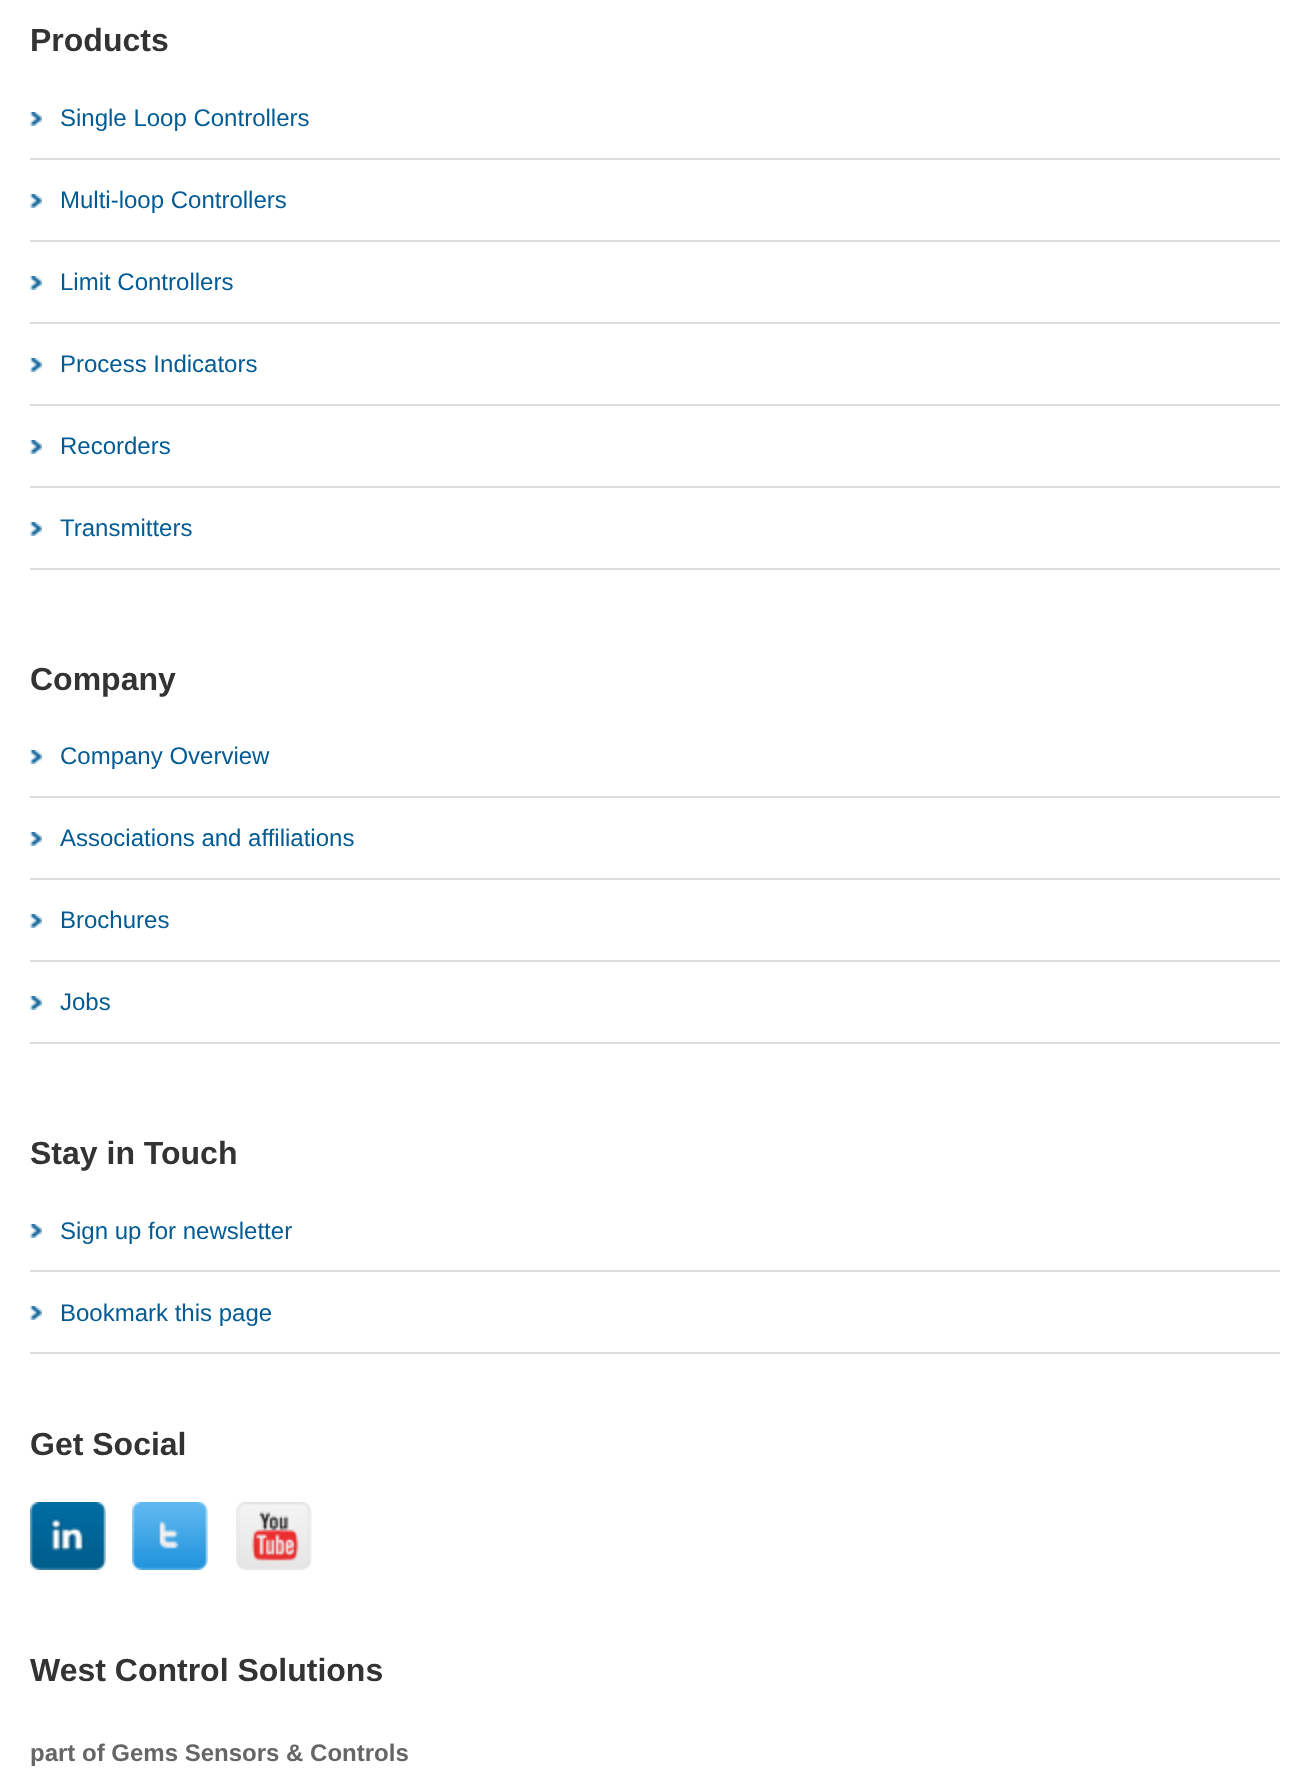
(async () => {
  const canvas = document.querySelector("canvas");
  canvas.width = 1309;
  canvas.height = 1782;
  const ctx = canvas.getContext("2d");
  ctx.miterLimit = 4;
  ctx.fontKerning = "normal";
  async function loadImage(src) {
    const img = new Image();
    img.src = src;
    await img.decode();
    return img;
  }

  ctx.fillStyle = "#ffffff";
  ctx.fillRect(0, 0, 1309, 1782);
  ctx.drawImage(await loadImage("img/1.png"), 30, 112, 12, 14);
  ctx.fillStyle = "#dddddd";
  ctx.fillRect(30, 158, 1250, 2);
  ctx.drawImage(await loadImage("img/1.png"), 30, 194, 12, 14);
  ctx.fillRect(30, 240, 1250, 2);
  ctx.drawImage(await loadImage("img/1.png"), 30, 276, 12, 14);
  ctx.fillRect(30, 322, 1250, 2);
  ctx.drawImage(await loadImage("img/1.png"), 30, 358, 12, 14);
  ctx.fillRect(30, 404, 1250, 2);
  ctx.drawImage(await loadImage("img/1.png"), 30, 440, 12, 14);
  ctx.fillRect(30, 486, 1250, 2);
  ctx.drawImage(await loadImage("img/1.png"), 30, 522, 12, 14);
  ctx.fillRect(30, 568, 1250, 2);
  ctx.drawImage(await loadImage("img/1.png"), 30, 750, 12, 14);
  ctx.fillRect(30, 796, 1250, 2);
  ctx.drawImage(await loadImage("img/1.png"), 30, 832, 12, 14);
  ctx.fillRect(30, 878, 1250, 2);
  ctx.drawImage(await loadImage("img/1.png"), 30, 914, 12, 14);
  ctx.fillRect(30, 960, 1250, 2);
  ctx.drawImage(await loadImage("img/1.png"), 30, 996, 12, 14);
  ctx.fillRect(30, 1042, 1250, 2);
  ctx.drawImage(await loadImage("img/1.png"), 30, 1224, 12, 14);
  ctx.fillRect(30, 1270, 1250, 2);
  ctx.drawImage(await loadImage("img/1.png"), 30, 1306, 12, 14);
  ctx.fillRect(30, 1352, 1250, 2);
  ctx.drawImage(await loadImage("img/2.png"), 30, 1502, 76, 68);
  ctx.drawImage(await loadImage("img/3.png"), 132, 1502, 76, 68);
  ctx.drawImage(await loadImage("img/4.png"), 236, 1502, 76, 68);
  ctx.font = "bold 32px Liberation Sans";
  ctx.fillStyle = "#333333";
  ctx.fillText("Products", 30, 51);
  ctx.font = "24px Liberation Sans";
  ctx.fillStyle = "#025b94";
  for (const [text, x, y] of [
    ["Single Loop Controllers", 60, 126],
    ["Multi-loop Controllers", 60, 208],
    ["Limit Controllers", 60, 290],
    ["Process Indicators", 60, 372],
    ["Recorders", 60, 454],
    ["Transmitters", 60, 536],
  ]) {
    ctx.fillText(text, x, y);
  }
  ctx.font = "bold 32px Liberation Sans";
  ctx.fillStyle = "#333333";
  ctx.fillText("Company", 30, 690);
  ctx.font = "24px Liberation Sans";
  ctx.fillStyle = "#025b94";
  for (const [text, x, y] of [
    ["Company Overview", 60, 764],
    ["Associations and affiliations", 60, 846],
    ["Brochures", 60, 928],
    ["Jobs", 60, 1010],
  ]) {
    ctx.fillText(text, x, y);
  }
  ctx.font = "bold 32px Liberation Sans";
  ctx.fillStyle = "#333333";
  ctx.fillText("Stay in Touch", 30, 1164);
  ctx.font = "24px Liberation Sans";
  ctx.fillStyle = "#025b94";
  ctx.fillText("Sign up for newsletter", 60, 1239);
  ctx.fillText("Bookmark this page", 60, 1321);
  ctx.font = "bold 32px Liberation Sans";
  ctx.fillStyle = "#333333";
  ctx.fillText("Get Social", 30, 1455);
  ctx.fillText("West Control Solutions", 30, 1681);
  ctx.font = "bold 24px Liberation Sans";
  ctx.fillStyle = "#666666";
  ctx.fillText("part of Gems Sensors & Controls", 30, 1761);
})();
